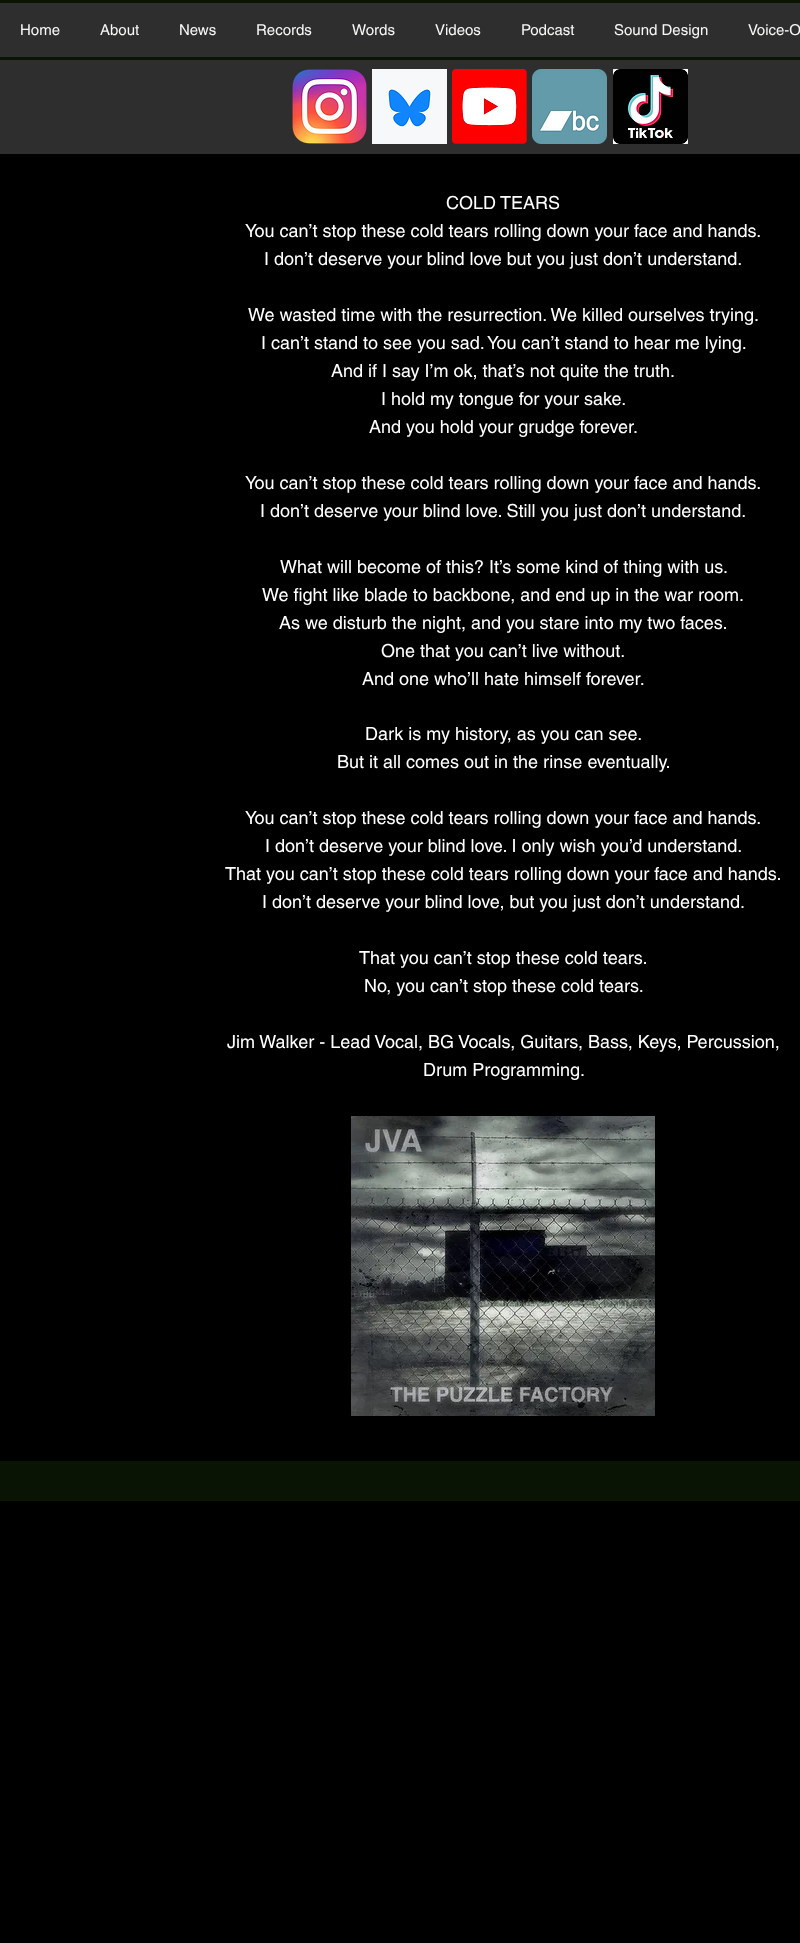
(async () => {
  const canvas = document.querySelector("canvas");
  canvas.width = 800;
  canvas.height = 1943;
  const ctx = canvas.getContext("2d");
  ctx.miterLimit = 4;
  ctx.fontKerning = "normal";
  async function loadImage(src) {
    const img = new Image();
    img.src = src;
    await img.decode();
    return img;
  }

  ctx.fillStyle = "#000000";
  ctx.fillRect(0, 0, 800, 1943);
  for (const [x, y, w, h, color] of [
    [0, 3, 800, 151, "#2f2e2e"],
    [0, 0, 800, 3, "#091405"],
    [0, 57, 800, 3, "#091405"],
  ]) {
    ctx.fillStyle = color;
    ctx.fillRect(x, y, w, h);
  }
  ctx.drawImage(await loadImage("img/1.png"), 292, 69, 75, 75);
  ctx.drawImage(await loadImage("img/2.png"), 372, 69, 75, 75);
  ctx.drawImage(await loadImage("img/3.png"), 452, 69, 75, 75);
  ctx.drawImage(await loadImage("img/4.png"), 532, 69, 75, 75);
  ctx.drawImage(await loadImage("img/5.png"), 613, 69, 75, 75);
  ctx.drawImage(await loadImage("img/6.png"), 351, 1116, 304, 300);
  ctx.fillRect(0, 1461, 800, 40);
  ctx.font = "15px helvetica";
  ctx.fillStyle = "#f6f9f5";
  for (const [text, x, y] of [
    ["Home", 20, 35],
    ["About", 100, 35],
    ["News", 179, 35],
    ["Records", 256, 35],
    ["Words", 352, 35],
    ["Videos", 435, 35],
    ["Podcast", 521, 35],
    ["Sound Design", 614, 35],
    ["Voice-O", 748, 35],
  ]) {
    ctx.fillText(text, x, y);
  }
  ctx.font = "18px helvetica";
  ctx.fillStyle = "#ffffff";
  for (const [text, x, y] of [
    ["COLD TEARS", 446, 209],
    ["You can’t stop these cold tears rolling down your face and hands.", 245, 237],
    ["I don’t deserve your blind love but you just don’t understand.", 264, 265],
    ["We wasted time with the resurrection. We killed ourselves trying.", 248, 321],
    ["I can’t stand to see you sad. You can’t stand to hear me lying.", 261, 349],
    ["And if I say I’m ok, that’s not quite the truth.", 331, 377],
    ["I hold my tongue for your sake.", 381, 405],
    ["And you hold your grudge forever.", 369, 433],
    ["You can’t stop these cold tears rolling down your face and hands.", 245, 489],
    ["I don’t deserve your blind love. Still you just don’t understand.", 260, 517],
    ["What will become of this? It’s some kind of thing with us.", 280, 573],
    ["We fight like blade to backbone, and end up in the war room.", 262, 601],
    ["As we disturb the night, and you stare into my two faces.", 279, 629],
    ["One that you can’t live without.", 381, 657],
    ["And one who’ll hate himself forever.", 362, 685],
    ["Dark is my history, as you can see.", 365, 740],
    ["But it all comes out in the rinse eventually.", 337, 768],
    ["You can’t stop these cold tears rolling down your face and hands.", 245, 824],
    ["I don’t deserve your blind love. I only wish you’d understand.", 265, 852],
    ["That you can’t stop these cold tears rolling down your face and hands.", 225, 880],
    ["I don’t deserve your blind love, but you just don’t understand.", 262, 908],
    ["That you can’t stop these cold tears.", 359, 964],
    ["No, you can’t stop these cold tears.", 364, 992],
    ["Jim Walker - Lead Vocal, BG Vocals, Guitars, Bass, Keys, Percussion,", 227, 1048],
    ["Drum Programming.", 423, 1076],
  ]) {
    ctx.fillText(text, x, y);
  }
})();
